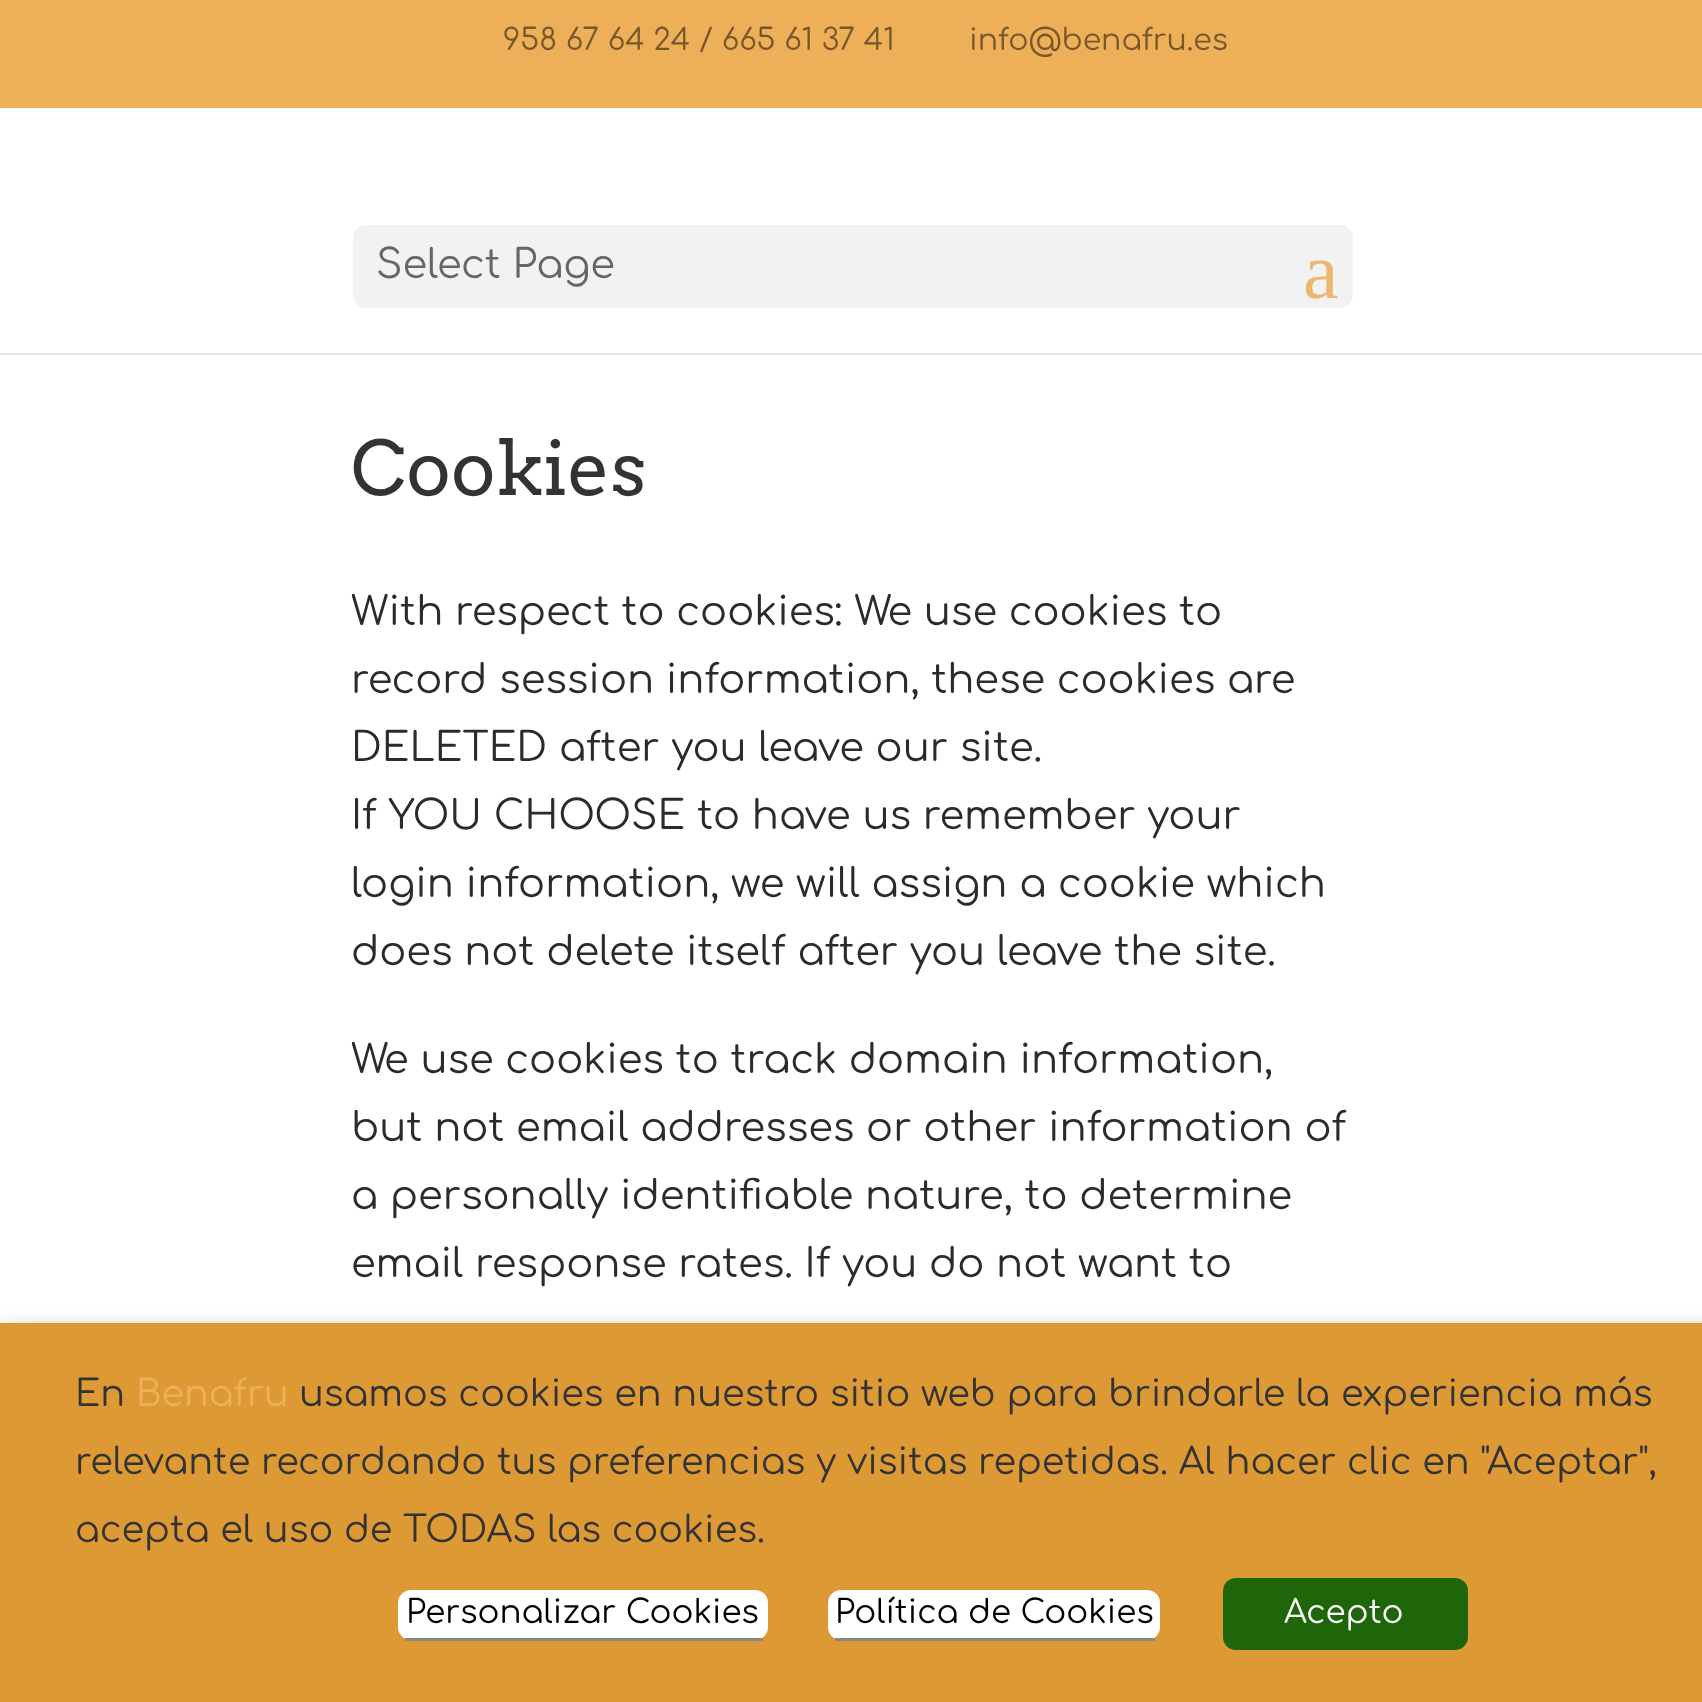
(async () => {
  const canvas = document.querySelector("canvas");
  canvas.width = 1702;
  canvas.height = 1702;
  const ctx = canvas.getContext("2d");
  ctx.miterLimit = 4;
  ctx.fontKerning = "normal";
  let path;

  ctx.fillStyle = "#ffffff";
  ctx.fillRect(0, 0, 1702, 1702);
  ctx.fillStyle = "#edb059";
  ctx.fillRect(0, 0, 1702, 108);
  ctx.fillStyle = "#e6e6e6";
  path = new Path2D("M0 352V355H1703V88H1702V352Z");
  ctx.fill(path);
  ctx.fillStyle = "#ffffff";
  ctx.fillRect(0, 352, 1702, 1);
  ctx.fillStyle = "#f2f2f2";
  ctx.beginPath();
  ctx.roundRect(353, 225, 1000, 83, 13);
  ctx.fill();
  ctx.fillStyle = "rgba(0, 0, 0, 0.5)";
  ctx.filter = "blur(12.5px)";
  ctx.beginPath();
  ctx.rect(0, 1335, 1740, 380);
  ctx.fill();
  ctx.filter = "none";
  ctx.fillStyle = "#dd9933";
  ctx.fillRect(0, 1323, 1702, 379);
  ctx.fillStyle = "#ffffff";
  ctx.beginPath();
  ctx.roundRect(398, 1590, 370, 50, 13);
  ctx.fill();
  ctx.fillStyle = "#898888";
  ctx.fillRect(405, 1638, 358, 3);
  ctx.fillStyle = "#ffffff";
  ctx.beginPath();
  ctx.roundRect(828, 1590, 332, 50, 13);
  ctx.fill();
  ctx.fillStyle = "#898888";
  ctx.fillRect(835, 1638, 320, 3);
  ctx.fillStyle = "#1e6609";
  ctx.beginPath();
  ctx.roundRect(1223, 1578, 245, 72, 13);
  ctx.fill();
  ctx.font = "30px Comfortaa";
  ctx.fillStyle = "#77582d";
  ctx.fillText("958 67 64 24 / 665 61 37 41", 503, 50);
  ctx.fillText("info@benafru.es", 969, 50);
  ctx.font = "40px Comfortaa";
  ctx.fillStyle = "#666666";
  ctx.fillText("Select Page", 376, 278);
  ctx.font = "80px Liberation Serif";
  ctx.fillStyle = "#ecb86d";
  ctx.fillText("a", 1303, 298);
  ctx.font = "75px Arvo";
  ctx.fillStyle = "#333333";
  ctx.fillText("Cookies", 351, 495);
  ctx.font = "40px Comfortaa";
  ctx.fillStyle = "#2b2b2b";
  for (const [text, x, y] of [
    ["With respect to cookies: We use cookies to", 351, 625],
    ["record session information, these cookies are", 351, 693],
    ["DELETED after you leave our site.", 351, 761],
    ["If YOU CHOOSE to have us remember your", 351, 829],
    ["login information, we will assign a cookie which", 351, 897],
    ["does not delete itself after you leave the site.", 351, 965],
    ["We use cookies to track domain information,", 351, 1073],
    ["but not email addresses or other information of", 351, 1141],
    ["a personally identifiable nature, to determine", 351, 1209],
    ["email response rates. If you do not want to", 351, 1277],
  ]) {
    ctx.fillText(text, x, y);
  }
  ctx.font = "36.65px Comfortaa";
  ctx.fillStyle = "#333333";
  ctx.fillText("En", 75, 1406);
  ctx.fillStyle = "#edb059";
  ctx.fillText("Benafru", 136, 1406);
  ctx.fillStyle = "#333333";
  for (const [text, x, y] of [
    ["usamos cookies en nuestro sitio web para brindarle la experiencia más", 299, 1406],
    ["relevante recordando tus preferencias y visitas repetidas. Al hacer clic en \"Aceptar\",", 75, 1474],
    ["acepta el uso de TODAS las cookies.", 75, 1542],
  ]) {
    ctx.fillText(text, x, y);
  }
  ctx.font = "32.5px Comfortaa";
  ctx.fillStyle = "#000000";
  ctx.fillText("Personalizar Cookies", 406, 1623);
  ctx.fillText("Política de Cookies", 835, 1623);
  ctx.fillStyle = "#ffffff";
  ctx.fillText("Acepto", 1284, 1623);
})();
